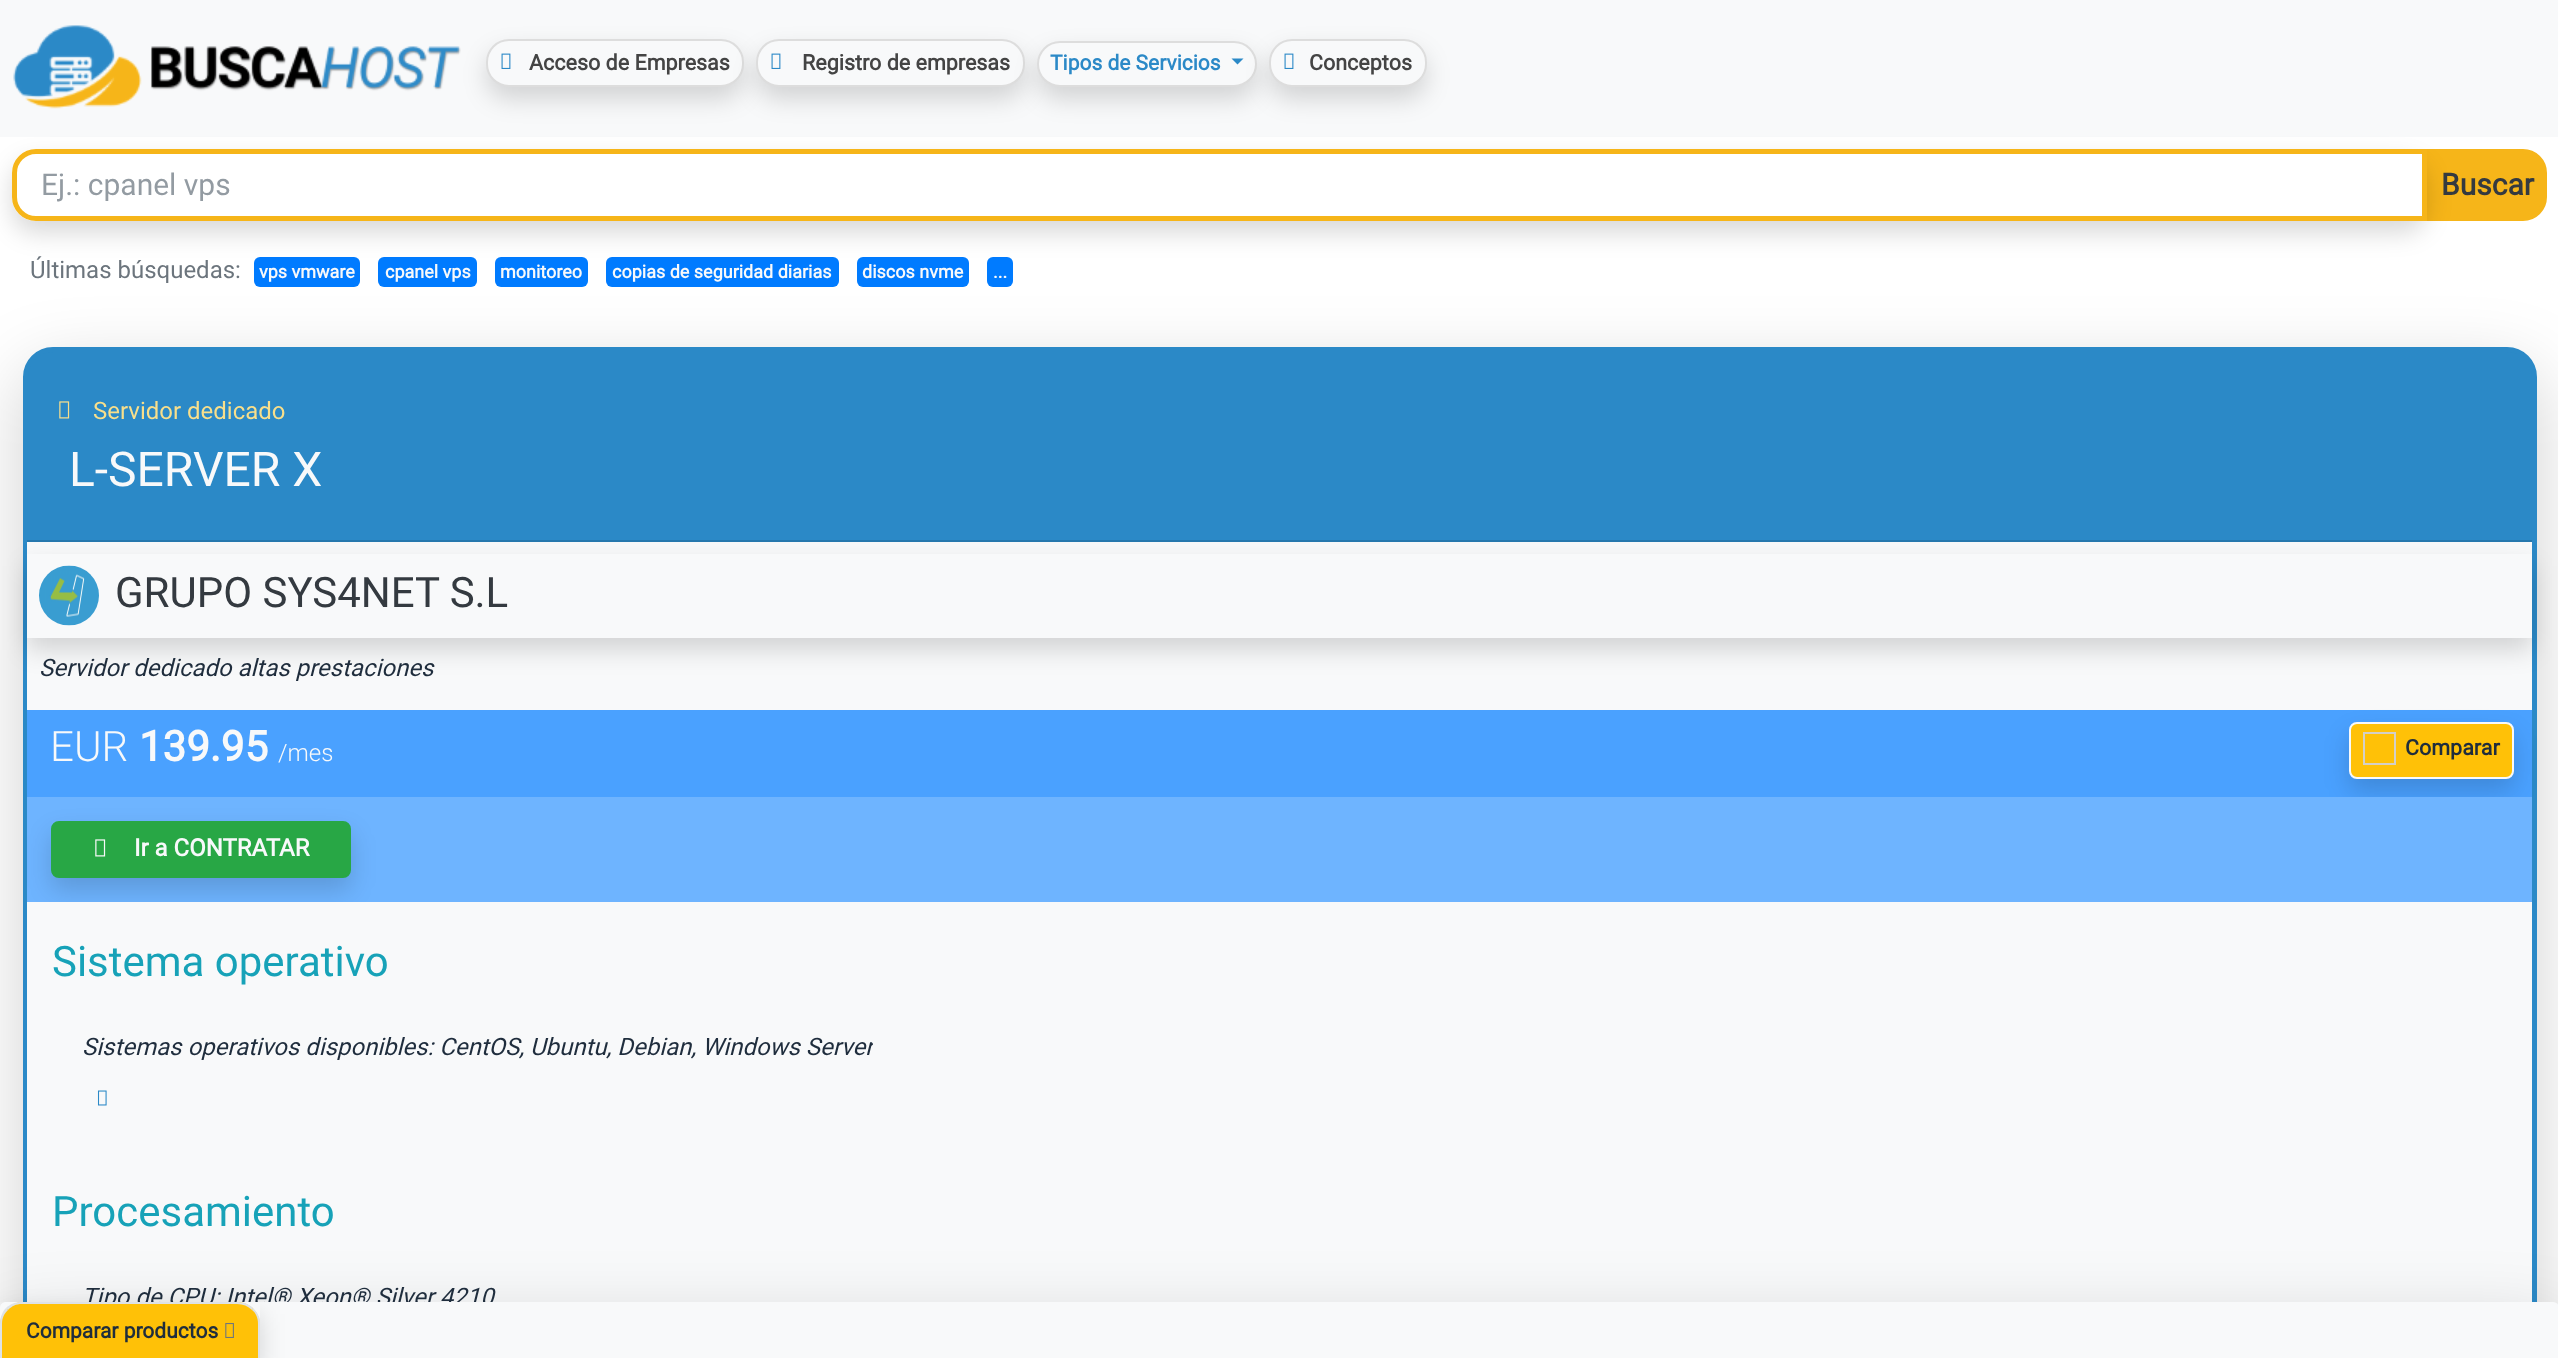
(async () => {
  const canvas = document.querySelector("canvas");
  canvas.width = 2558;
  canvas.height = 1358;
  const ctx = canvas.getContext("2d");
  ctx.miterLimit = 4;
  ctx.fontKerning = "normal";
  async function loadImage(src) {
    const img = new Image();
    img.src = src;
    await img.decode();
    return img;
  }
  let path;

  ctx.fillStyle = "#ffffff";
  ctx.fillRect(0, 0, 2558, 1358);
  ctx.fillStyle = "#f8f9fa";
  ctx.fillRect(0, 0, 2558, 137);
  ctx.drawImage(await loadImage("img/1.png"), 13, 25, 448, 84);
  ctx.fillStyle = "rgba(0, 0, 0, 0.15)";
  ctx.filter = "blur(12px)";
  ctx.beginPath();
  ctx.roundRect(486, 51, 258, 48, 23);
  ctx.fill();
  ctx.filter = "none";
  ctx.fillStyle = "#f8f9fa";
  ctx.beginPath();
  ctx.roundRect(487, 40, 256, 46, 22);
  ctx.fill();
  ctx.strokeStyle = "#dddddd";
  ctx.lineWidth = 2;
  ctx.stroke();
  ctx.drawImage(await loadImage("img/2.png"), 501, 53, 10, 16);
  ctx.fillStyle = "rgba(0, 0, 0, 0.15)";
  ctx.filter = "blur(12px)";
  ctx.beginPath();
  ctx.roundRect(756, 51, 269, 48, 23);
  ctx.fill();
  ctx.filter = "none";
  ctx.fillStyle = "#f8f9fa";
  ctx.beginPath();
  ctx.roundRect(757, 40, 267, 46, 22);
  ctx.fill();
  ctx.stroke();
  ctx.drawImage(await loadImage("img/2.png"), 771, 53, 10, 16);
  ctx.fillStyle = "rgba(0, 0, 0, 0.15)";
  ctx.filter = "blur(12px)";
  ctx.beginPath();
  ctx.roundRect(1037, 53, 220, 46, 23);
  ctx.fill();
  ctx.filter = "none";
  ctx.fillStyle = "#f8f9fa";
  ctx.beginPath();
  ctx.roundRect(1038, 42, 218, 44, 22);
  ctx.fill();
  ctx.stroke();
  ctx.fillStyle = "#2b89c7";
  path = new Path2D("M1231.5 58.5H1243.5L1237.5 64.5Z");
  ctx.fill(path);
  ctx.fillStyle = "rgba(0, 0, 0, 0.15)";
  ctx.filter = "blur(12px)";
  ctx.beginPath();
  ctx.roundRect(1269, 51, 158, 48, 23);
  ctx.fill();
  ctx.filter = "none";
  ctx.fillStyle = "#f8f9fa";
  ctx.beginPath();
  ctx.roundRect(1270, 40, 156, 46, 22);
  ctx.fill();
  ctx.stroke();
  ctx.drawImage(await loadImage("img/2.png"), 1284, 53, 10, 16);
  ctx.fillStyle = "#f6b519";
  ctx.beginPath();
  ctx.roundRect(2429.5, 151.5, 115, 67, [0, 21.5, 21.5, 0]);
  ctx.fill();
  ctx.strokeStyle = "#f6b519";
  ctx.lineWidth = 5;
  ctx.stroke();
  ctx.fillStyle = "#007bff";
  ctx.beginPath();
  ctx.roundRect(254, 257, 106, 30, 6);
  ctx.fill();
  ctx.beginPath();
  ctx.roundRect(378, 257, 99, 30, 6);
  ctx.fill();
  ctx.beginPath();
  ctx.roundRect(495, 257, 93, 30, 6);
  ctx.fill();
  ctx.beginPath();
  ctx.roundRect(606, 257, 233, 30, 6);
  ctx.fill();
  ctx.beginPath();
  ctx.roundRect(857, 257, 112, 30, 6);
  ctx.fill();
  ctx.beginPath();
  ctx.roundRect(987, 257, 26, 30, 6);
  ctx.fill();
  ctx.save();
  path = new Path2D("M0 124H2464V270H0ZM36 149H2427V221H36C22.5 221 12 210.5 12 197V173C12 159.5 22.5 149 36 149Z");
  ctx.clip(path, "evenodd");
  ctx.fillStyle = "rgba(0, 0, 0, 0.15)";
  ctx.filter = "blur(12px)";
  ctx.beginPath();
  ctx.roundRect(12, 161, 2415, 72, 24);
  ctx.fill();
  ctx.filter = "none";
  ctx.restore();
  ctx.beginPath();
  ctx.roundRect(14.5, 151.5, 2410, 67, [21.5, 0, 0, 21.5]);
  ctx.stroke();
  ctx.fillStyle = "rgba(0, 0, 0, 0.18)";
  ctx.filter = "blur(36px)";
  ctx.beginPath();
  ctx.roundRect(23, 371, 2514, 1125, 30);
  ctx.fill();
  ctx.filter = "none";
  ctx.fillStyle = "#2b89c7";
  ctx.beginPath();
  ctx.roundRect(25.5, 349.5, 2509, 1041, 27.5);
  ctx.fill();
  ctx.strokeStyle = "#2b89c7";
  ctx.stroke();
  ctx.fillStyle = "#f8f9fa";
  ctx.fillRect(27, 542, 2505, 168);
  ctx.save();
  path = new Path2D("M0 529H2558V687H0ZM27 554H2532V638H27Z");
  ctx.clip(path, "evenodd");
  ctx.fillStyle = "rgba(0, 0, 0, 0.15)";
  ctx.filter = "blur(12px)";
  ctx.beginPath();
  ctx.rect(27, 566, 2505, 84);
  ctx.fill();
  ctx.filter = "none";
  ctx.restore();
  ctx.fillStyle = "#2678ae";
  ctx.fillRect(27, 540, 2505, 2);
  ctx.drawImage(await loadImage("img/3.png"), 59, 401, 11, 18);
  ctx.drawImage(await loadImage("img/4.png"), 39, 565, 60, 61);
  ctx.fillStyle = "#4aa1ff";
  ctx.fillRect(27, 710, 2505, 87);
  ctx.fillStyle = "rgba(0, 0, 0, 0.15)";
  ctx.filter = "blur(12px)";
  ctx.beginPath();
  ctx.roundRect(2349, 734, 165, 57, 8);
  ctx.fill();
  ctx.filter = "none";
  ctx.fillStyle = "#ffc107";
  ctx.beginPath();
  ctx.roundRect(2350, 723, 163, 55, 7);
  ctx.fill();
  ctx.strokeStyle = "#f8f9fa";
  ctx.lineWidth = 2;
  ctx.stroke();
  ctx.strokeStyle = "#d3cfc8";
  ctx.strokeRect(2364, 733, 31, 31);
  ctx.fillStyle = "#6eb4ff";
  ctx.fillRect(27, 797, 2505, 105);
  ctx.fillStyle = "rgba(0, 0, 0, 0.15)";
  ctx.filter = "blur(12px)";
  ctx.beginPath();
  ctx.roundRect(51, 833, 300, 57, 8);
  ctx.fill();
  ctx.filter = "none";
  ctx.fillStyle = "#28a745";
  ctx.beginPath();
  ctx.roundRect(52, 822, 298, 55, 7);
  ctx.fill();
  ctx.strokeStyle = "#28a745";
  ctx.stroke();
  ctx.drawImage(await loadImage("img/5.png"), 95, 839, 11, 18);
  ctx.fillStyle = "#f8f9fa";
  ctx.fillRect(27, 902, 2505, 400);
  ctx.drawImage(await loadImage("img/6.png"), 97, 1090, 10, 16);
  ctx.fillStyle = "rgba(0, 0, 0, 0.18)";
  ctx.filter = "blur(36px)";
  ctx.beginPath();
  ctx.roundRect(0, 1326, 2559, 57, 6);
  ctx.fill();
  ctx.filter = "none";
  ctx.font = "bold 21.5px Roboto";
  ctx.fillStyle = "#444444";
  ctx.fillText("Acceso de Empresas", 529, 70);
  ctx.fillText("Registro de empresas", 802, 70);
  ctx.font = "bold 21px Roboto";
  ctx.fillStyle = "#2b89c7";
  ctx.fillText("Tipos de Servicios", 1050, 70);
  ctx.font = "bold 21.5px Roboto";
  ctx.fillStyle = "#444444";
  ctx.fillText("Conceptos", 1309, 70);
  ctx.font = "30px Roboto";
  ctx.fillStyle = "#939ba2";
  ctx.fillText("Ej.: cpanel vps", 41, 195);
  ctx.font = "bold 30px Roboto";
  ctx.fillStyle = "#343a40";
  ctx.fillText("Buscar", 2441, 195);
  ctx.font = "24px Roboto";
  ctx.fillStyle = "#6c757d";
  ctx.fillText("Últimas búsquedas:", 30, 278);
  ctx.font = "bold 18px Roboto";
  ctx.fillStyle = "#f8f9fa";
  for (const [text, x, y] of [
    ["vps vmware", 259, 278],
    ["cpanel vps", 385, 278],
    ["monitoreo", 500, 278],
    ["copias de seguridad diarias", 612, 278],
    ["discos nvme", 862, 278],
    ["...", 993, 278],
  ]) {
    ctx.fillText(text, x, y);
  }
  ctx.font = "24px Roboto";
  ctx.fillStyle = "#f8df8b";
  ctx.fillText("Servidor dedicado", 93, 419);
  ctx.font = "48px Roboto";
  ctx.fillStyle = "#f8f9fa";
  ctx.fillText("L-SERVER X", 69, 486);
  ctx.font = "42px Roboto";
  ctx.fillStyle = "#343a40";
  ctx.fillText("GRUPO SYS4NET S.L", 115, 607);
  ctx.font = "italic 24px Roboto";
  ctx.fillStyle = "#1f2d3d";
  ctx.fillText("Servidor dedicado altas prestaciones", 39, 676);
  ctx.font = "300 42px Roboto";
  ctx.fillStyle = "#f8f9fa";
  ctx.fillText("EUR", 50, 761);
  ctx.font = "bold 42px Roboto";
  ctx.fillText("139.95", 139, 761);
  ctx.font = "300 24px Roboto";
  ctx.fillText("/mes", 278, 761);
  ctx.font = "bold 21.5px Roboto";
  ctx.fillStyle = "#1f2d3d";
  ctx.fillText("Comparar", 2405, 755);
  ctx.font = "bold 24px Roboto";
  ctx.fillStyle = "#f8f9fa";
  ctx.fillText("Ir a CONTRATAR", 134, 856);
  ctx.font = "42px Roboto";
  ctx.fillStyle = "#17a2b8";
  ctx.fillText("Sistema operativo", 52, 976);
  ctx.save();
  ctx.beginPath();
  ctx.rect(83, 1031, 790, 45);
  ctx.clip();
  ctx.font = "italic 24px Roboto";
  ctx.fillStyle = "#1f2d3d";
  ctx.fillText("Sistemas operativos disponibles: CentOS, Ubuntu, Debian, Windows Server", 82, 1055);
  ctx.restore();
  ctx.fillText("Procesamiento", 52, 1226);
  ctx.font = "italic 24px Roboto";
  ctx.fillStyle = "#1f2d3d";
  ctx.fillText("Tipo de CPU: Intel® Xeon® Silver 4210", 82, 1305);
  ctx.fillStyle = "#f8f9fa";
  path = new Path2D("M6 1302H2553C2556.5 1302 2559 1304.5 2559 1308V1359H0V1308C0 1304.5 2.5 1302 6 1302Z");
  ctx.fill(path);
  ctx.save();
  path = new Path2D("M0 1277H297V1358H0ZM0 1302H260V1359H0Z");
  ctx.clip(path, "evenodd");
  ctx.fillStyle = "rgba(0, 0, 0, 0.15)";
  ctx.filter = "blur(12px)";
  ctx.beginPath();
  ctx.rect(0, 1314, 260, 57);
  ctx.fill();
  ctx.filter = "none";
  ctx.restore();
  ctx.fillStyle = "#ffc107";
  path = new Path2D("M23 1302H237C249.5 1302 260 1312.5 260 1325V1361H0V1325C0 1312.5 10.5 1302 23 1302Z");
  ctx.fill(path);
  ctx.fillStyle = "#dee2e6";
  path = new Path2D("M22 1302C16 1302 10 1304 6 1308L8 1310C12 1306 16 1304 22 1304H237C243 1304 248 1306 252 1310L253 1308C249 1304 243 1302 237 1302Z");
  ctx.fill(path);
  path = new Path2D("M260 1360L258 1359V1324C258 1318 256 1313 252 1310L253 1308C256 1311 259 1315 260 1320Z");
  ctx.fill(path);
  path = new Path2D("M0 1324V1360L2 1358V1324C2 1318 4 1314 8 1310L6 1308C2 1312 0 1318 0 1324Z");
  ctx.fill(path);
  ctx.font = "bold 21px Roboto";
  ctx.fillStyle = "#1f2d3d";
  ctx.fillText("Comparar productos", 26, 1338);
  ctx.drawImage(await loadImage("img/7.png"), 225, 1323, 9, 15);
})();
